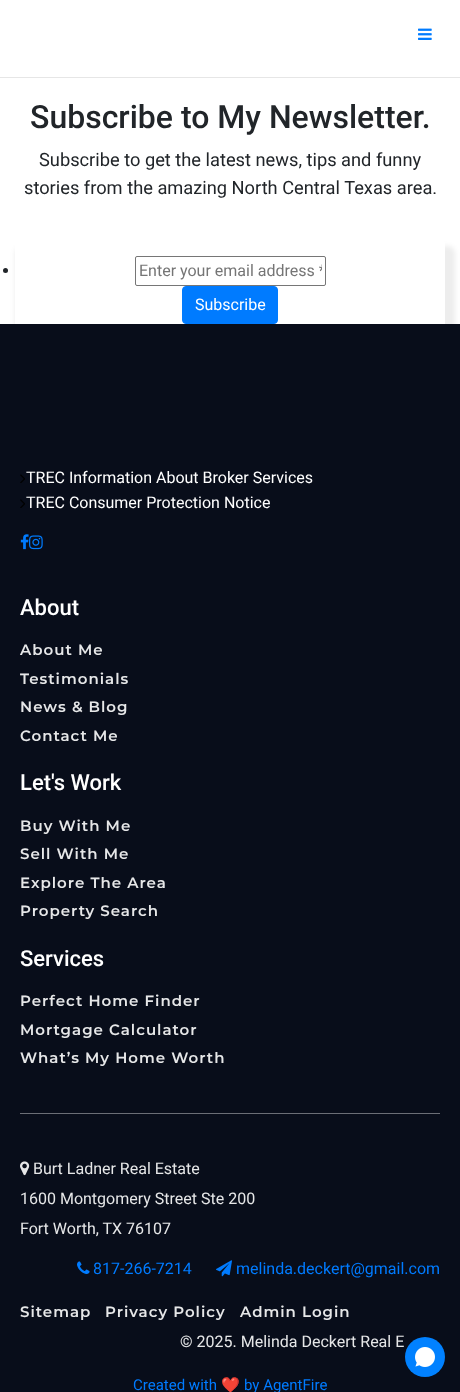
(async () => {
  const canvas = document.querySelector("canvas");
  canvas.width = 460;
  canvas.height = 1392;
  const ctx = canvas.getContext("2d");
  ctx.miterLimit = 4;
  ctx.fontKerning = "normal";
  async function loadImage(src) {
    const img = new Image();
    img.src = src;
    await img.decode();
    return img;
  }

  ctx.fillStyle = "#ffffff";
  ctx.fillRect(0, 0, 460, 1392);
  ctx.fillStyle = "#e6e6e6";
  ctx.fillRect(0, 77, 460, 1);
  ctx.drawImage(await loadImage("img/1.png"), 418, 28, 14, 12);
  ctx.fillStyle = "rgba(0, 0, 0, 0.07)";
  ctx.filter = "blur(2.5px)";
  ctx.beginPath();
  ctx.roundRect(15, 246, 440, 133, 7);
  ctx.fill();
  ctx.filter = "none";
  ctx.fillStyle = "#ffffff";
  ctx.beginPath();
  ctx.roundRect(15, 241, 430, 123, 2);
  ctx.fill();
  ctx.fillStyle = "#212529";
  ctx.beginPath();
  ctx.arc(5.5, 270.5, 2.5, 0, Math.PI * 2);
  ctx.fill();
  ctx.beginPath();
  ctx.roundRect(135.5, 256.5, 190, 29, 1.5);
  ctx.strokeStyle = "#767676";
  ctx.stroke();
  ctx.fillStyle = "#007bff";
  ctx.beginPath();
  ctx.roundRect(182.5, 286.5, 95, 37, 3.5);
  ctx.fill();
  ctx.strokeStyle = "#007bff";
  ctx.stroke();
  ctx.fillStyle = "#080d1a";
  ctx.fillRect(0, 324, 460, 1068);
  ctx.drawImage(await loadImage("img/2.png"), 20, 474, 5, 9);
  ctx.drawImage(await loadImage("img/2.png"), 20, 499, 5, 9);
  ctx.drawImage(await loadImage("img/3.png"), 20, 534, 9, 16);
  ctx.drawImage(await loadImage("img/4.png"), 29, 535, 14, 15);
  ctx.fillStyle = "#6b6e76";
  ctx.fillRect(20, 1113, 420, 1);
  ctx.drawImage(await loadImage("img/5.png"), 20, 1161, 10, 15);
  ctx.drawImage(await loadImage("img/6.png"), 77, 1261, 13, 13);
  ctx.drawImage(await loadImage("img/7.png"), 216, 1260, 16, 17);
  ctx.fillStyle = "#0181ff";
  ctx.beginPath();
  ctx.arc(425, 1357, 20, 0, Math.PI * 2);
  ctx.fill();
  ctx.drawImage(await loadImage("img/8.png"), 415, 1347, 20, 20);
  ctx.font = "500 32px Roboto";
  ctx.fillStyle = "#212529";
  ctx.fillText("Subscribe to My Newsletter.", 30, 128);
  ctx.font = "18.25px Roboto";
  ctx.fillText("Subscribe to get the latest news, tips and funny", 39, 166);
  ctx.fillText("stories from the amazing North Central Texas area.", 24, 194);
  ctx.save();
  ctx.beginPath();
  ctx.rect(139, 261, 183, 19);
  ctx.clip();
  ctx.font = "16px Roboto";
  ctx.fillStyle = "#757575";
  ctx.fillText("Enter your email address *", 139, 276);
  ctx.restore();
  ctx.font = "16px Roboto";
  ctx.fillStyle = "#ffffff";
  for (const [text, x, y] of [
    ["Subscribe", 195, 310],
    ["TREC Information About Broker Services", 26, 483],
    ["TREC Consumer Protection Notice", 26, 508],
  ]) {
    ctx.fillText(text, x, y);
  }
  ctx.font = "500 22px Roboto";
  ctx.fillText("About", 20, 615);
  ctx.letterSpacing = "1px";
  ctx.font = "600 15px Montserrat";
  ctx.fillStyle = "#e6e7e8";
  for (const [text, x, y] of [
    ["About Me", 20, 655],
    ["Testimonials", 20, 684],
    ["News & Blog", 20, 712],
    ["Contact Me", 20, 741],
  ]) {
    ctx.fillText(text, x, y);
  }
  ctx.letterSpacing = "0px";
  ctx.font = "500 22px Roboto";
  ctx.fillStyle = "#ffffff";
  ctx.fillText("Let's Work", 20, 790);
  ctx.letterSpacing = "1px";
  ctx.font = "600 15px Montserrat";
  ctx.fillStyle = "#e6e7e8";
  for (const [text, x, y] of [
    ["Buy With Me", 20, 831],
    ["Sell With Me", 20, 859],
    ["Explore The Area", 20, 888],
    ["Property Search", 20, 916],
  ]) {
    ctx.fillText(text, x, y);
  }
  ctx.letterSpacing = "0px";
  ctx.font = "500 22px Roboto";
  ctx.fillStyle = "#ffffff";
  ctx.fillText("Services", 20, 966);
  ctx.letterSpacing = "1px";
  ctx.font = "600 15px Montserrat";
  ctx.fillStyle = "#e6e7e8";
  for (const [text, x, y] of [
    ["Perfect Home Finder", 20, 1006],
    ["Mortgage Calculator", 20, 1035],
    ["What’s My Home Worth", 20, 1063],
  ]) {
    ctx.fillText(text, x, y);
  }
  ctx.letterSpacing = "0px";
  ctx.font = "16px Roboto";
  for (const [text, x, y] of [
    ["Burt Ladner Real Estate", 33, 1174],
    ["1600 Montgomery Street Ste 200", 20, 1204],
    ["Fort Worth, TX 76107", 20, 1234],
  ]) {
    ctx.fillText(text, x, y);
  }
  ctx.fillStyle = "#007bff";
  ctx.fillText("817-266-7214", 93, 1274);
  ctx.fillText("melinda.deckert@gmail.com", 236, 1274);
  ctx.letterSpacing = "1px";
  ctx.font = "600 15px Montserrat";
  ctx.fillStyle = "#e6e7e8";
  for (const [text, x, y] of [
    ["Sitemap", 20, 1317],
    ["Privacy Policy", 105, 1317],
    ["Admin Login", 240, 1317],
  ]) {
    ctx.fillText(text, x, y);
  }
  ctx.letterSpacing = "0px";
  ctx.font = "16px Roboto";
  ctx.fillText("© 2025. Melinda Deckert Real E", 180, 1347);
  ctx.font = "15px Roboto";
  ctx.fillStyle = "#007bff";
  ctx.fillText("Created with", 133, 1390);
  ctx.font = "15px Noto Color Emoji";
  ctx.fillText("❤️", 221, 1390);
  ctx.font = "15px Roboto";
  ctx.fillText("by AgentFire", 244, 1390);
})();
